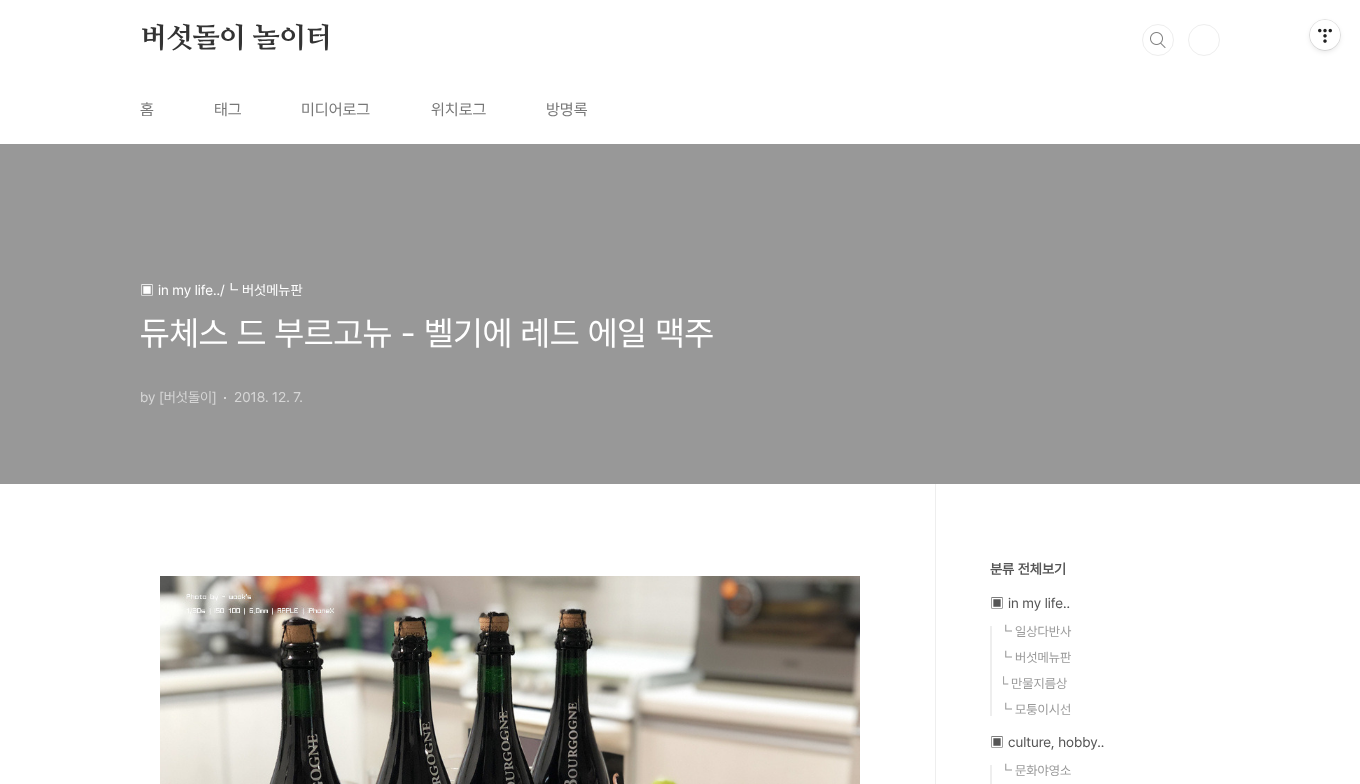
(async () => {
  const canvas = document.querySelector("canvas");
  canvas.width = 1360;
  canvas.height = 784;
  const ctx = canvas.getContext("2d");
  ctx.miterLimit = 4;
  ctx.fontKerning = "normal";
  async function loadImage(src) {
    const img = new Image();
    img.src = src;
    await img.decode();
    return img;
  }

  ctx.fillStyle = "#ffffff";
  ctx.fillRect(0, 0, 1360, 784);
  ctx.beginPath();
  ctx.arc(1158, 40, 14.5, 0, Math.PI * 2);
  ctx.strokeStyle = "#eeeeee";
  ctx.stroke();
  ctx.beginPath();
  ctx.arc(1158, 40, 16, 0, Math.PI * 2);
  ctx.fill();
  ctx.drawImage(await loadImage("img/1.png"), 1150, 32, 16, 16);
  ctx.beginPath();
  ctx.arc(1158, 40, 15.5, 0, Math.PI * 2);
  ctx.stroke();
  ctx.beginPath();
  ctx.arc(1204, 40, 15.5, 0, Math.PI * 2);
  ctx.stroke();
  ctx.fillStyle = "#989898";
  ctx.fillRect(0, 144, 1360, 340);
  ctx.fillStyle = "#d6d6d6";
  ctx.fillRect(224, 397, 2, 2);
  ctx.drawImage(await loadImage("img/2.png"), 160, 576, 700, 208);
  for (const [x, y, w, h, color] of [
    [935, 484, 1, 300, "#eeeeee"],
    [990, 626, 2, 90, "#eeeeee"],
    [990, 765, 2, 19, "#eeeeee"],
  ]) {
    ctx.fillStyle = color;
    ctx.fillRect(x, y, w, h);
  }
  ctx.fillStyle = "rgba(0, 0, 0, 0.1)";
  ctx.filter = "blur(2.5px)";
  ctx.beginPath();
  ctx.roundRect(1310, 22, 30, 30, 15);
  ctx.fill();
  ctx.filter = "none";
  ctx.beginPath();
  ctx.arc(1325, 35, 15.5, 0, Math.PI * 2);
  ctx.strokeStyle = "rgba(0, 0, 0, 0.1)";
  ctx.stroke();
  ctx.fillStyle = "#ffffff";
  ctx.beginPath();
  ctx.arc(1325, 35, 15, 0, Math.PI * 2);
  ctx.fill();
  ctx.drawImage(await loadImage("img/3.png"), 1318, 28, 14, 15);
  ctx.letterSpacing = "-0.25px";
  ctx.font = "800 28px NanumMyeongjo";
  ctx.fillStyle = "#333333";
  ctx.fillText("버섯돌이 놀이터", 140, 47);
  ctx.letterSpacing = "0px";
  ctx.font = "16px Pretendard";
  ctx.fillStyle = "#777777";
  for (const [text, x, y] of [
    ["홈", 140, 115],
    ["태그", 214, 115],
    ["미디어로그", 301, 115],
    ["위치로그", 431, 115],
    ["방명록", 546, 115],
  ]) {
    ctx.fillText(text, x, y);
  }
  ctx.font = "500 14px WenQuanYi Zen Hei";
  ctx.fillStyle = "#ffffff";
  ctx.fillText("▣", 140, 295);
  ctx.font = "14px Pretendard";
  ctx.fillText("in my life../", 158, 295);
  ctx.font = "500 14px WenQuanYi Zen Hei";
  ctx.fillText("┗", 224, 295);
  ctx.font = "14px Pretendard";
  ctx.fillText("버섯메뉴판", 242, 295);
  ctx.font = "34px Pretendard";
  ctx.fillText("듀체스 드 부르고뉴 - 벨기에 레드 에일 맥주", 140, 345);
  ctx.font = "14px Pretendard";
  ctx.fillStyle = "#d6d6d6";
  ctx.fillText("by [버섯돌이]", 140, 402);
  ctx.fillText("2018. 12. 7.", 234, 402);
  ctx.font = "bold 14px Pretendard";
  ctx.fillStyle = "#555555";
  ctx.fillText("분류 전체보기", 990, 574);
  ctx.font = "500 14px WenQuanYi Zen Hei";
  ctx.fillText("▣", 990, 608);
  ctx.font = "14px Pretendard";
  ctx.fillText("in my life..", 1008, 608);
  ctx.font = "500 13px WenQuanYi Zen Hei";
  ctx.fillStyle = "#999999";
  ctx.fillText("┗", 999, 636);
  ctx.font = "13px Pretendard";
  ctx.fillText("일상다반사", 1015, 636);
  ctx.font = "500 13px WenQuanYi Zen Hei";
  ctx.fillText("┗", 999, 662);
  ctx.font = "13px Pretendard";
  ctx.fillText("버섯메뉴판", 1015, 662);
  ctx.font = "13px Liberation Sans";
  ctx.fillText("└", 999, 688);
  ctx.font = "13px Pretendard";
  ctx.fillText("만물지름상", 1011, 688);
  ctx.font = "500 13px WenQuanYi Zen Hei";
  ctx.fillText("┗", 999, 714);
  ctx.font = "13px Pretendard";
  ctx.fillText("모퉁이시선", 1015, 714);
  ctx.font = "500 14px WenQuanYi Zen Hei";
  ctx.fillStyle = "#555555";
  ctx.fillText("▣", 990, 747);
  ctx.font = "14px Pretendard";
  ctx.fillText("culture, hobby..", 1008, 747);
  ctx.font = "500 13px WenQuanYi Zen Hei";
  ctx.fillStyle = "#999999";
  ctx.fillText("┗", 999, 775);
  ctx.font = "13px Pretendard";
  ctx.fillText("문화야영소", 1015, 775);
})();
